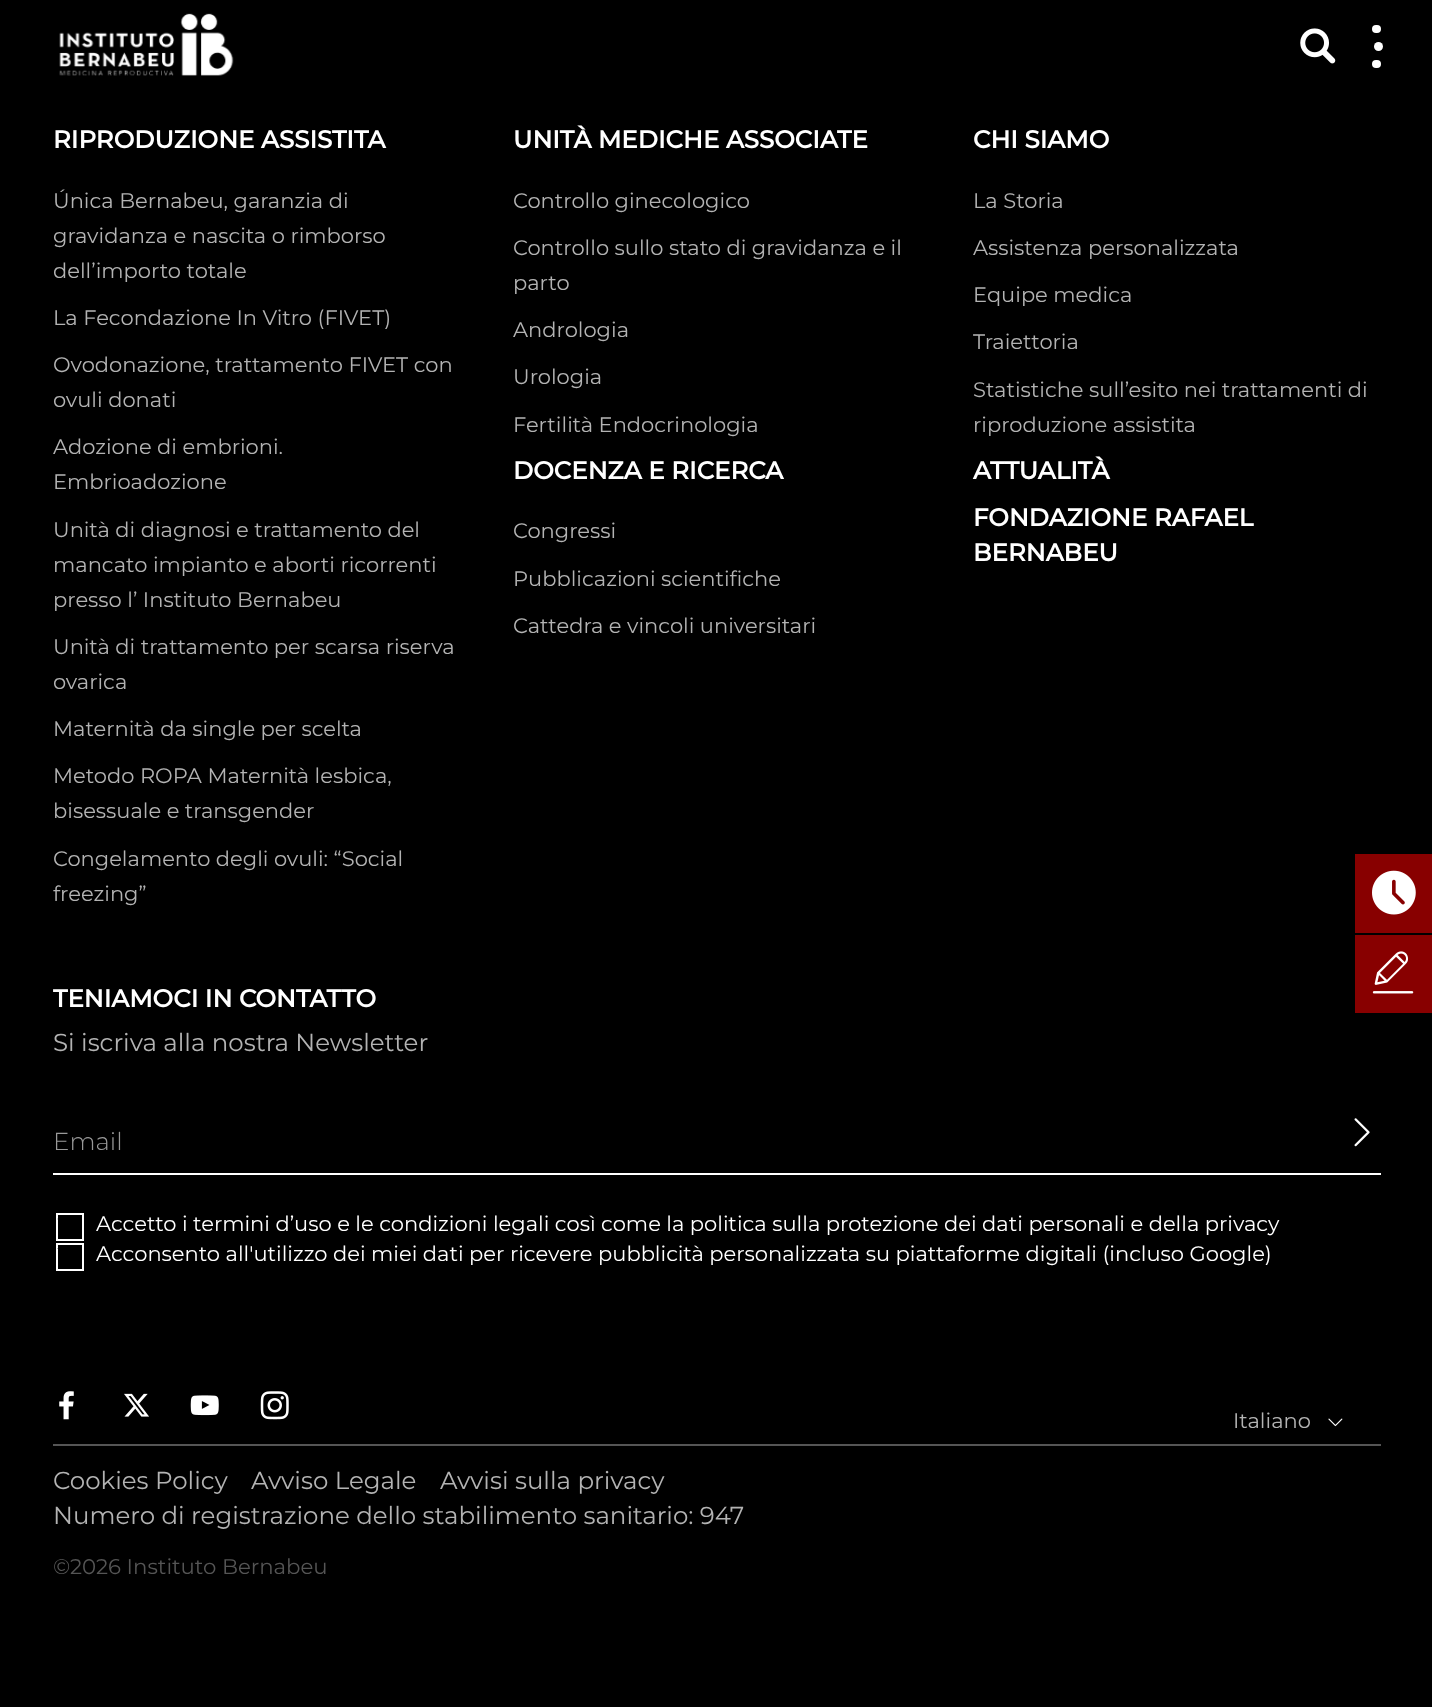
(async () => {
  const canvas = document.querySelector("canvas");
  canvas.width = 1432;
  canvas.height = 1707;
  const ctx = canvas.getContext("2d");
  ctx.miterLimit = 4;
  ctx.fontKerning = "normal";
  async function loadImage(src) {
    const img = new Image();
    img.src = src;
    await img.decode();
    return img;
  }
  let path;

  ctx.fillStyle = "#000000";
  ctx.fillRect(0, 0, 1432, 1707);
  ctx.drawImage(await loadImage("img/1.png"), 59, 13, 175, 63);
  ctx.drawImage(await loadImage("img/2.png"), 1300, 28, 36, 36);
  ctx.fillStyle = "#ffffff";
  ctx.beginPath();
  ctx.arc(1378.5, 46.5, 4.5, 0, Math.PI * 2);
  ctx.fill();
  ctx.beginPath();
  ctx.roundRect(1372, 25, 9, 8, 4);
  ctx.fill();
  ctx.beginPath();
  ctx.roundRect(1372, 60, 9, 8, 4);
  ctx.fill();
  ctx.fillRect(53, 1173, 1328, 2);
  ctx.strokeStyle = "#ffffff";
  ctx.lineWidth = 2;
  ctx.strokeRect(57, 1214, 26, 26);
  ctx.fillStyle = "#000000";
  path = new Path2D("M57.5 1219L60 1216.5L72.5 1229L70 1231.5Z");
  ctx.fill(path);
  ctx.strokeRect(57, 1244, 26, 26);
  path = new Path2D("M57.5 1248.5L60 1246L72.5 1258.5L70 1261Z");
  ctx.fill(path);
  ctx.drawImage(await loadImage("img/3.png"), 1354, 1118, 16, 29);
  ctx.drawImage(await loadImage("img/4.png"), 59, 1391, 15, 29);
  ctx.drawImage(await loadImage("img/5.png"), 124, 1393, 25, 24);
  ctx.drawImage(await loadImage("img/6.png"), 190, 1395, 29, 21);
  ctx.drawImage(await loadImage("img/7.png"), 260, 1391, 29, 29);
  ctx.drawImage(await loadImage("img/8.png"), 1328, 1418, 15, 9);
  ctx.fillStyle = "#555555";
  ctx.fillRect(53, 1444, 1328, 2);
  ctx.fillStyle = "#880000";
  ctx.fillRect(1355, 854, 77, 79);
  ctx.drawImage(await loadImage("img/9.png"), 1372, 870, 44, 45);
  ctx.fillRect(1355, 935, 77, 78);
  ctx.drawImage(await loadImage("img/10.png"), 1372, 951, 42, 43);
  ctx.font = "bold 24.5px Montserrat";
  ctx.fillStyle = "#ffffff";
  ctx.fillText("RIPRODUZIONE ASSISTITA", 53, 148);
  ctx.font = "21px Montserrat";
  ctx.fillStyle = "#b3b3b3";
  for (const [text, x, y] of [
    ["Única Bernabeu, garanzia di", 53, 208],
    ["gravidanza e nascita o rimborso", 53, 243],
    ["dell’importo totale", 53, 278],
    ["La Fecondazione In Vitro (FIVET)", 53, 325],
    ["Ovodonazione, trattamento FIVET con", 53, 372],
    ["ovuli donati", 53, 407],
    ["Adozione di embrioni.", 53, 454],
    ["Embrioadozione", 53, 489],
    ["Unità di diagnosi e trattamento del", 53, 537],
    ["mancato impianto e aborti ricorrenti", 53, 572],
    ["presso l’ Instituto Bernabeu", 53, 607],
    ["Unità di trattamento per scarsa riserva", 53, 654],
    ["ovarica", 53, 689],
    ["Maternità da single per scelta", 53, 736],
    ["Metodo ROPA Maternità lesbica,", 53, 783],
    ["bisessuale e transgender", 53, 818],
    ["Congelamento degli ovuli: “Social", 53, 866],
    ["freezing”", 53, 901],
  ]) {
    ctx.fillText(text, x, y);
  }
  ctx.font = "bold 24.5px Montserrat";
  ctx.fillStyle = "#ffffff";
  ctx.fillText("UNITÀ MEDICHE ASSOCIATE", 513, 148);
  ctx.font = "21px Montserrat";
  ctx.fillStyle = "#b3b3b3";
  for (const [text, x, y] of [
    ["Controllo ginecologico", 513, 208],
    ["Controllo sullo stato di gravidanza e il", 513, 255],
    ["parto", 513, 290],
    ["Andrologia", 513, 337],
    ["Urologia", 513, 384],
    ["Fertilità Endocrinologia", 513, 432],
  ]) {
    ctx.fillText(text, x, y);
  }
  ctx.font = "bold 24.5px Montserrat";
  ctx.fillStyle = "#ffffff";
  ctx.fillText("DOCENZA E RICERCA", 513, 479);
  ctx.font = "21px Montserrat";
  ctx.fillStyle = "#b3b3b3";
  for (const [text, x, y] of [
    ["Congressi", 513, 538],
    ["Pubblicazioni scientifiche", 513, 586],
    ["Cattedra e vincoli universitari", 513, 633],
  ]) {
    ctx.fillText(text, x, y);
  }
  ctx.font = "bold 24.5px Montserrat";
  ctx.fillStyle = "#ffffff";
  ctx.fillText("CHI SIAMO", 973, 148);
  ctx.font = "21px Montserrat";
  ctx.fillStyle = "#b3b3b3";
  for (const [text, x, y] of [
    ["La Storia", 973, 208],
    ["Assistenza personalizzata", 973, 255],
    ["Equipe medica", 973, 302],
    ["Traiettoria", 973, 349],
    ["Statistiche sull’esito nei trattamenti di", 973, 397],
    ["riproduzione assistita", 973, 432],
  ]) {
    ctx.fillText(text, x, y);
  }
  ctx.font = "bold 24.5px Montserrat";
  ctx.fillStyle = "#ffffff";
  for (const [text, x, y] of [
    ["ATTUALITÀ", 973, 479],
    ["FONDAZIONE RAFAEL", 973, 526],
    ["BERNABEU", 973, 561],
    ["TENIAMOCI IN CONTATTO", 53, 1007],
  ]) {
    ctx.fillText(text, x, y);
  }
  ctx.font = "24.5px Montserrat";
  ctx.fillStyle = "#b3b3b3";
  ctx.fillText("Si iscriva alla nostra Newsletter", 53, 1051);
  ctx.font = "300 24.5px Montserrat";
  ctx.fillStyle = "#999999";
  ctx.fillText("Email", 53, 1150);
  ctx.font = "21px Montserrat";
  ctx.fillStyle = "#ffffff";
  ctx.fillText("Accetto i termini d’uso e le condizioni legali così come la politica sulla protezione dei dati personali e della privacy", 96, 1231);
  ctx.fillText("Acconsento all'utilizzo dei miei dati per ricevere pubblicità personalizzata su piattaforme digitali (incluso Google)", 96, 1261);
  ctx.fillStyle = "#b3b3b3";
  ctx.fillText("Italiano", 1233, 1428);
  ctx.font = "24.5px Montserrat";
  for (const [text, x, y] of [
    ["Cookies Policy", 53, 1489],
    ["Avviso Legale", 251, 1489],
    ["Avvisi sulla privacy", 440, 1489],
    ["Numero di registrazione dello stabilimento sanitario: 947", 53, 1524],
  ]) {
    ctx.fillText(text, x, y);
  }
  ctx.font = "21.25px Montserrat";
  ctx.fillStyle = "#555555";
  ctx.fillText("©2026 Instituto Bernabeu", 53, 1574);
})();
